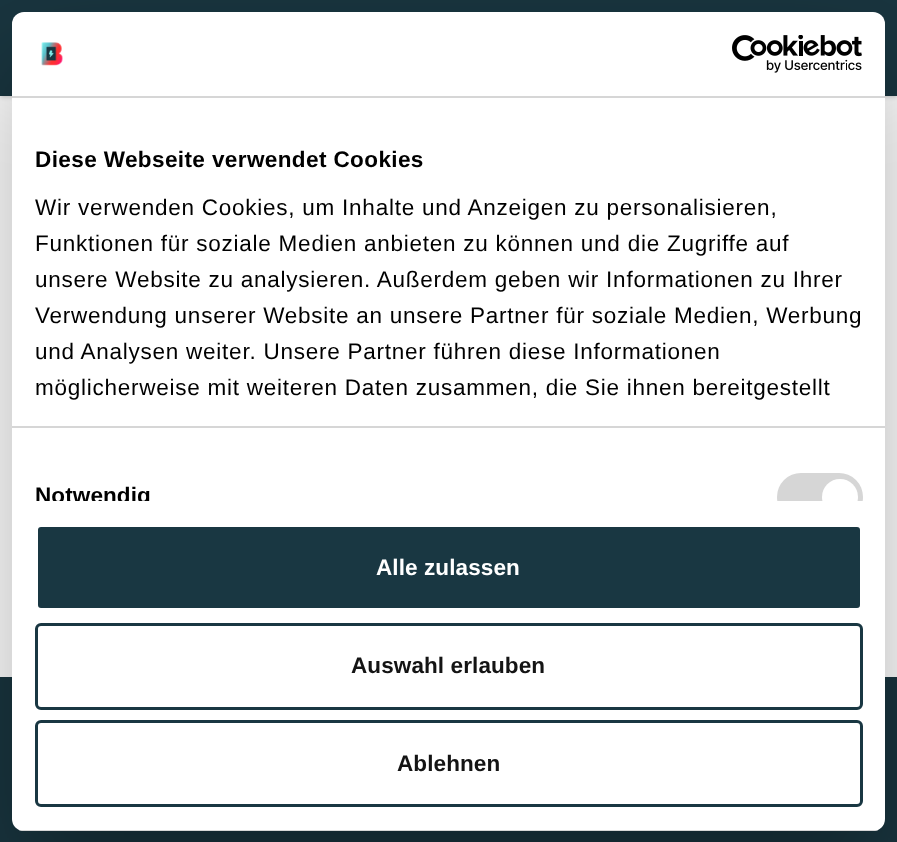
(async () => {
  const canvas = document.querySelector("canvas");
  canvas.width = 897;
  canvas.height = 842;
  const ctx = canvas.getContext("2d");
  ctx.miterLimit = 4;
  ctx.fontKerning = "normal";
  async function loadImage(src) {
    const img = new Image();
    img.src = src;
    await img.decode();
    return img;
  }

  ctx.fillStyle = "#ffffff";
  ctx.fillRect(0, 0, 897, 842);
  ctx.fillStyle = "rgba(0, 0, 0, 0.1)";
  ctx.filter = "blur(1.5px)";
  ctx.beginPath();
  ctx.rect(2, 3, 894, 93);
  ctx.fill();
  ctx.filter = "none";
  ctx.filter = "blur(2px)";
  ctx.beginPath();
  ctx.rect(0, 2, 897, 96);
  ctx.fill();
  ctx.filter = "none";
  ctx.fillStyle = "#19353f";
  ctx.fillRect(0, 0, 897, 96);
  ctx.fillRect(0, 677, 897, 165);
  ctx.fillStyle = "rgba(0, 0, 0, 0.3)";
  ctx.filter = "blur(51px)";
  ctx.beginPath();
  ctx.roundRect(12, 60, 873, 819, 12);
  ctx.fill();
  ctx.filter = "none";
  ctx.fillStyle = "#ffffff";
  ctx.beginPath();
  ctx.roundRect(12, 12, 873, 819, 12);
  ctx.fill();
  ctx.fillStyle = "#d6d6d6";
  ctx.fillRect(12, 96, 873, 2);
  ctx.drawImage(await loadImage("img/1.png"), 41, 42, 22, 24);
  ctx.drawImage(await loadImage("img/2.png"), 732, 35, 130, 38);
  ctx.fillRect(12, 426, 873, 2);
  ctx.save();
  ctx.beginPath();
  ctx.rect(12, 98, 873, 403);
  ctx.clip();
  ctx.beginPath();
  ctx.roundRect(777, 473, 86, 48, 24);
  ctx.fill();
  ctx.fillStyle = "#ffffff";
  ctx.beginPath();
  ctx.arc(840, 497, 18, 0, Math.PI * 2);
  ctx.fill();
  ctx.restore();
  ctx.save();
  ctx.beginPath();
  ctx.roundRect(12, 12, 873, 819, 12);
  ctx.clip();
  ctx.fillRect(12, 830, 873, 1);
  ctx.restore();
  ctx.fillStyle = "#193742";
  ctx.beginPath();
  ctx.roundRect(36.5, 525.5, 825, 84, 4.5);
  ctx.fill();
  ctx.strokeStyle = "#ffffff";
  ctx.lineWidth = 3;
  ctx.stroke();
  ctx.beginPath();
  ctx.roundRect(36.5, 624.5, 825, 84, 4.5);
  ctx.strokeStyle = "#193742";
  ctx.stroke();
  ctx.beginPath();
  ctx.roundRect(36.5, 721.5, 825, 84, 4.5);
  ctx.stroke();
  ctx.letterSpacing = "0.4px";
  ctx.font = "bold 22.5px Liberation Sans";
  ctx.fillStyle = "#000000";
  ctx.fillText("Diese Webseite verwendet Cookies", 35, 167);
  ctx.letterSpacing = "0.75px";
  ctx.font = "22.5px Liberation Sans";
  for (const [text, x, y] of [
    ["Wir verwenden Cookies, um Inhalte und Anzeigen zu personalisieren,", 35, 215],
    ["Funktionen für soziale Medien anbieten zu können und die Zugriffe auf", 35, 251],
    ["unsere Website zu analysieren. Außerdem geben wir Informationen zu Ihrer", 35, 287],
    ["Verwendung unserer Website an unsere Partner für soziale Medien, Werbung", 35, 323],
    ["und Analysen weiter. Unsere Partner führen diese Informationen", 35, 359],
    ["möglicherweise mit weiteren Daten zusammen, die Sie ihnen bereitgestellt", 35, 395],
  ]) {
    ctx.fillText(text, x, y);
  }
  ctx.save();
  ctx.beginPath();
  ctx.rect(12, 98, 873, 403);
  ctx.clip();
  ctx.letterSpacing = "0.1px";
  ctx.font = "bold 22.5px Liberation Sans";
  ctx.fillText("Notwendig", 35, 503);
  ctx.restore();
  ctx.letterSpacing = "0.1px";
  ctx.font = "bold 22.5px Liberation Sans";
  ctx.fillStyle = "#ffffff";
  ctx.fillText("Alle zulassen", 376, 575);
  ctx.fillStyle = "#141414";
  ctx.fillText("Auswahl erlauben", 351, 673);
  ctx.fillText("Ablehnen", 397, 771);
})();
